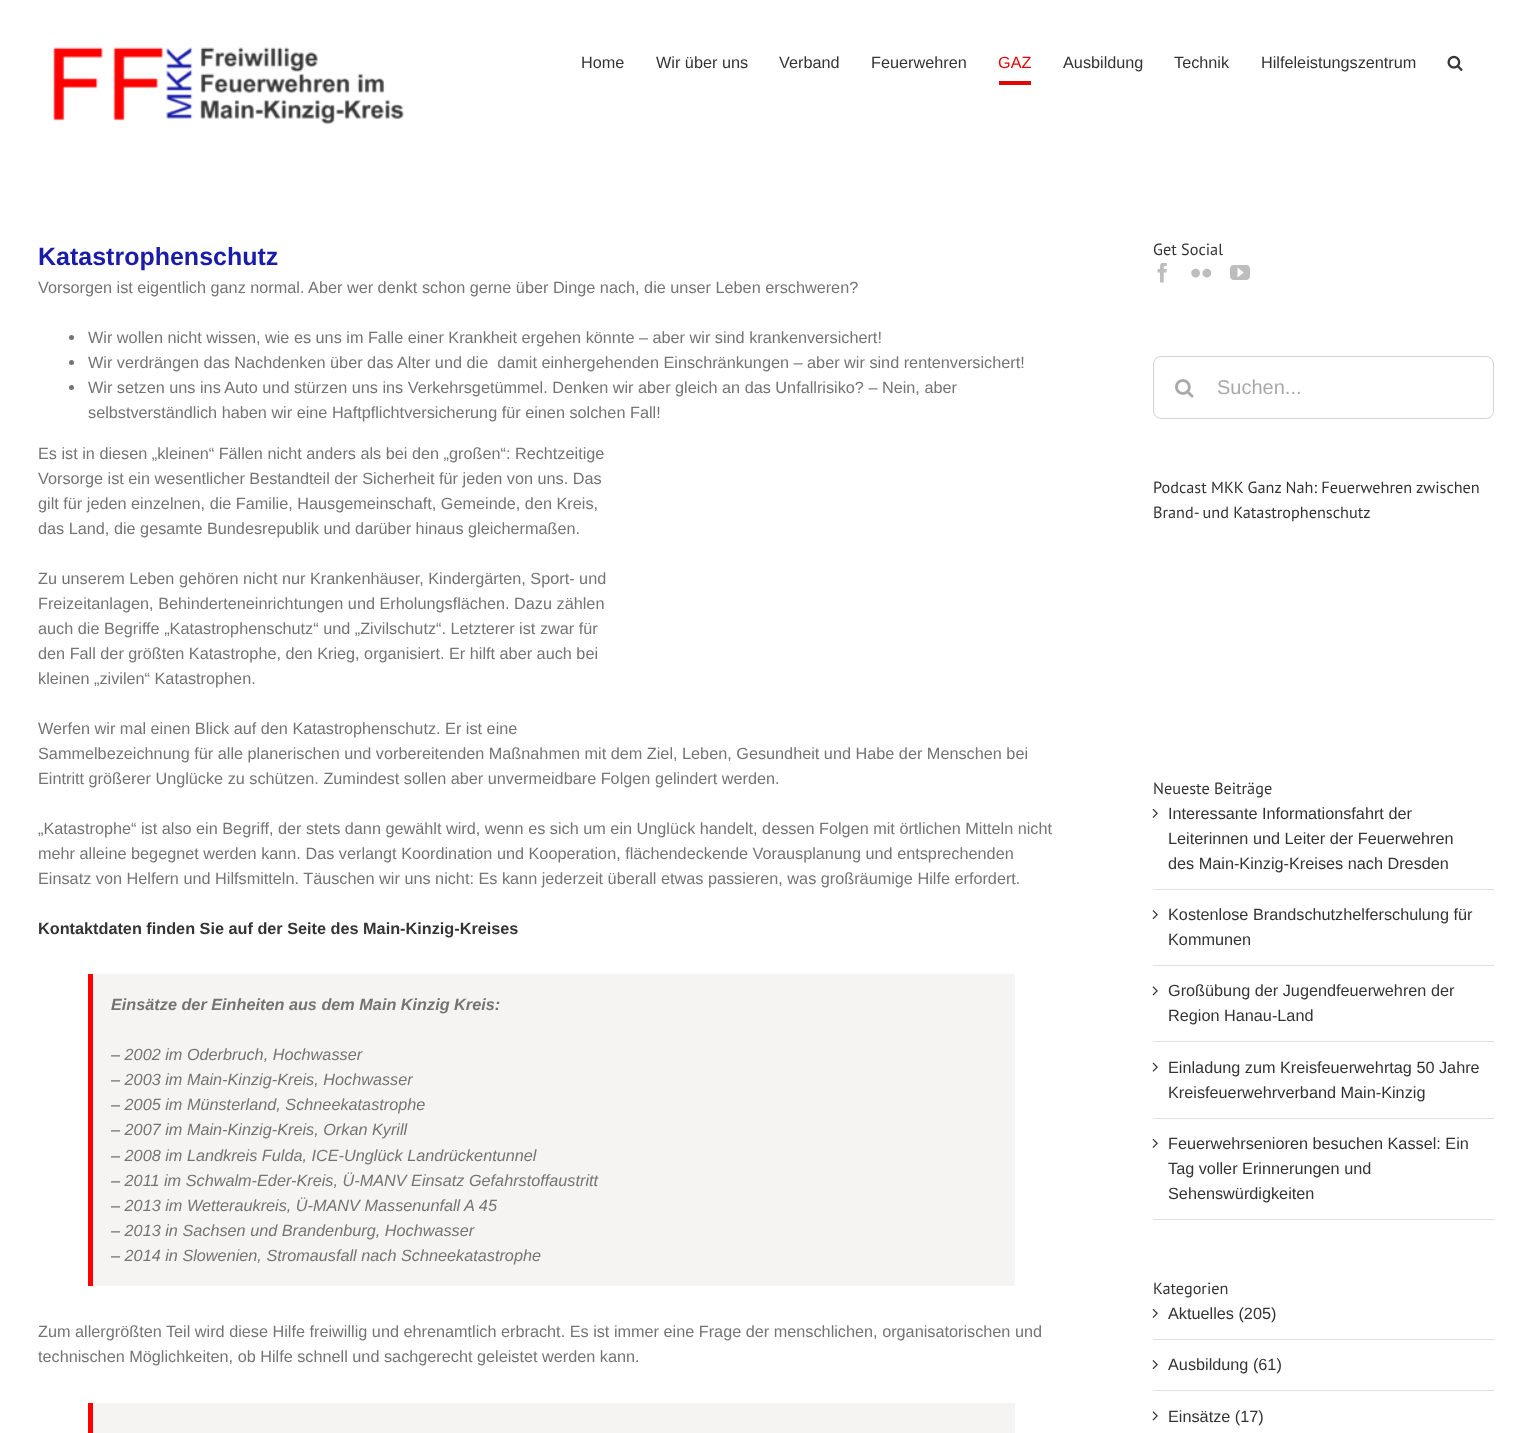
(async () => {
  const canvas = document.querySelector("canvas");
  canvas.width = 1531;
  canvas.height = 1433;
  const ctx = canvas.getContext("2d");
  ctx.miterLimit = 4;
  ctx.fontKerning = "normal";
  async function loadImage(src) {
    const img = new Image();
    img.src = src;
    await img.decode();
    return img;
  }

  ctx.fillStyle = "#ffffff";
  ctx.fillRect(0, 0, 1531, 1433);
  ctx.drawImage(await loadImage("img/1.png"), 53, 47, 351, 77);
  ctx.fillStyle = "#e10707";
  ctx.fillRect(999, 81, 32, 4);
  ctx.drawImage(await loadImage("img/2.png"), 1447, 55, 16, 16);
  ctx.fillStyle = "#747474";
  ctx.beginPath();
  ctx.arc(71.5, 337.5, 2.5, 0, Math.PI * 2);
  ctx.fill();
  ctx.beginPath();
  ctx.arc(71.5, 362.5, 2.5, 0, Math.PI * 2);
  ctx.fill();
  ctx.beginPath();
  ctx.arc(71.5, 387.5, 2.5, 0, Math.PI * 2);
  ctx.fill();
  for (const [x, y, w, h, color] of [
    [93, 974, 922, 312, "#f6f3f3"],
    [88, 974, 5, 312, "#ff0000"],
    [93, 1403, 922, 30, "#f6f3f3"],
    [88, 1403, 5, 30, "#ff0000"],
  ]) {
    ctx.fillStyle = color;
    ctx.fillRect(x, y, w, h);
  }
  ctx.drawImage(await loadImage("img/3.png"), 1157, 263, 10, 20);
  ctx.drawImage(await loadImage("img/4.png"), 1191, 268, 21, 10);
  ctx.drawImage(await loadImage("img/5.png"), 1230, 265, 20, 15);
  ctx.beginPath();
  ctx.roundRect(1153.5, 356.5, 340, 62, 7.5);
  ctx.strokeStyle = "#d2d2d2";
  ctx.stroke();
  ctx.drawImage(await loadImage("img/6.png"), 1175, 379, 19, 19);
  ctx.fillStyle = "#e0dede";
  ctx.fillRect(1153, 889, 341, 1);
  ctx.drawImage(await loadImage("img/7.png"), 1152, 808, 6, 10);
  ctx.fillRect(1153, 965, 341, 1);
  ctx.drawImage(await loadImage("img/8.png"), 1152, 910, 6, 10);
  ctx.fillRect(1153, 1041, 341, 1);
  ctx.drawImage(await loadImage("img/9.png"), 1152, 986, 6, 10);
  ctx.fillRect(1153, 1118, 341, 1);
  ctx.drawImage(await loadImage("img/10.png"), 1152, 1062, 6, 10);
  ctx.fillRect(1153, 1219, 341, 1);
  ctx.drawImage(await loadImage("img/7.png"), 1152, 1138, 6, 10);
  ctx.fillRect(1153, 1339, 341, 1);
  ctx.drawImage(await loadImage("img/7.png"), 1152, 1308, 6, 10);
  ctx.fillRect(1153, 1390, 341, 1);
  ctx.drawImage(await loadImage("img/8.png"), 1152, 1360, 6, 10);
  ctx.drawImage(await loadImage("img/9.png"), 1152, 1411, 6, 10);
  ctx.font = "16.25px Liberation Sans";
  ctx.fillStyle = "#333333";
  for (const [text, x, y] of [
    ["Home", 581, 68],
    ["Wir über uns", 656, 68],
    ["Verband", 779, 68],
    ["Feuerwehren", 871, 68],
  ]) {
    ctx.fillText(text, x, y);
  }
  ctx.fillStyle = "#e10707";
  ctx.fillText("GAZ", 998, 68);
  ctx.fillStyle = "#333333";
  for (const [text, x, y] of [
    ["Ausbildung", 1063, 68],
    ["Technik", 1174, 68],
    ["Hilfeleistungszentrum", 1261, 68],
  ]) {
    ctx.fillText(text, x, y);
  }
  ctx.font = "bold 25px Liberation Sans";
  ctx.fillStyle = "#191ca8";
  ctx.fillText("Katastrophenschutz", 38, 265);
  ctx.font = "16.25px Liberation Sans";
  ctx.fillStyle = "#747474";
  for (const [text, x, y] of [
    ["Vorsorgen ist eigentlich ganz normal. Aber wer denkt schon gerne über Dinge nach, die unser Leben erschweren?", 38, 293],
    ["Wir wollen nicht wissen, wie es uns im Falle einer Krankheit ergehen könnte – aber wir sind krankenversichert!", 88, 343],
    ["Wir verdrängen das Nachdenken über das Alter und die  damit einhergehenden Einschränkungen – aber wir sind rentenversichert!", 88, 368],
    ["Wir setzen uns ins Auto und stürzen uns ins Verkehrsgetümmel. Denken wir aber gleich an das Unfallrisiko? – Nein, aber", 88, 393],
    ["selbstverständlich haben wir eine Haftpflichtversicherung für einen solchen Fall!", 88, 418],
    ["Es ist in diesen „kleinen“ Fällen nicht anders als bei den „großen“: Rechtzeitige", 38, 459],
    ["Vorsorge ist ein wesentlicher Bestandteil der Sicherheit für jeden von uns. Das", 38, 484],
    ["gilt für jeden einzelnen, die Familie, Hausgemeinschaft, Gemeinde, den Kreis,", 38, 509],
    ["das Land, die gesamte Bundesrepublik und darüber hinaus gleichermaßen.", 38, 534],
    ["Zu unserem Leben gehören nicht nur Krankenhäuser, Kindergärten, Sport- und", 38, 584],
    ["Freizeitanlagen, Behinderteneinrichtungen und Erholungsflächen. Dazu zählen", 38, 609],
    ["auch die Begriffe „Katastrophenschutz“ und „Zivilschutz“. Letzterer ist zwar für", 38, 634],
    ["den Fall der größten Katastrophe, den Krieg, organisiert. Er hilft aber auch bei", 38, 659],
    ["kleinen „zivilen“ Katastrophen.", 38, 684],
    ["Werfen wir mal einen Blick auf den Katastrophenschutz. Er ist eine", 38, 734],
    ["Sammelbezeichnung für alle planerischen und vorbereitenden Maßnahmen mit dem Ziel, Leben, Gesundheit und Habe der Menschen bei", 38, 759],
    ["Eintritt größerer Unglücke zu schützen. Zumindest sollen aber unvermeidbare Folgen gelindert werden.", 38, 784],
    ["„Katastrophe“ ist also ein Begriff, der stets dann gewählt wird, wenn es sich um ein Unglück handelt, dessen Folgen mit örtlichen Mitteln nicht", 38, 834],
    ["mehr alleine begegnet werden kann. Das verlangt Koordination und Kooperation, flächendeckende Vorausplanung und entsprechenden", 38, 859],
    ["Einsatz von Helfern und Hilfsmitteln. Täuschen wir uns nicht: Es kann jederzeit überall etwas passieren, was großräumige Hilfe erfordert.", 38, 884],
  ]) {
    ctx.fillText(text, x, y);
  }
  ctx.font = "bold 16.25px Liberation Sans";
  ctx.fillStyle = "#333333";
  ctx.fillText("Kontaktdaten finden Sie auf der Seite des Main-Kinzig-Kreises", 38, 934);
  ctx.font = "italic bold 16.25px Liberation Sans";
  ctx.fillStyle = "#747474";
  ctx.fillText("Einsätze der Einheiten aus dem Main Kinzig Kreis:", 111, 1010);
  ctx.font = "italic 16.25px Liberation Sans";
  for (const [text, x, y] of [
    ["– 2002 im Oderbruch, Hochwasser", 111, 1060],
    ["– 2003 im Main-Kinzig-Kreis, Hochwasser", 111, 1085],
    ["– 2005 im Münsterland, Schneekatastrophe", 111, 1110],
    ["– 2007 im Main-Kinzig-Kreis, Orkan Kyrill", 111, 1135],
    ["– 2008 im Landkreis Fulda, ICE-Unglück Landrückentunnel", 111, 1161],
    ["– 2011 im Schwalm-Eder-Kreis, Ü-MANV Einsatz Gefahrstoffaustritt", 111, 1186],
    ["– 2013 im Wetteraukreis, Ü-MANV Massenunfall A 45", 111, 1211],
    ["– 2013 in Sachsen und Brandenburg, Hochwasser", 111, 1236],
    ["– 2014 in Slowenien, Stromausfall nach Schneekatastrophe", 111, 1261],
  ]) {
    ctx.fillText(text, x, y);
  }
  ctx.font = "16.25px Liberation Sans";
  ctx.fillText("Zum allergrößten Teil wird diese Hilfe freiwillig und ehrenamtlich erbracht. Es ist immer eine Frage der menschlichen, organisatorischen und", 38, 1337);
  ctx.fillText("technischen Möglichkeiten, ob Hilfe schnell und sachgerecht geleistet werden kann.", 38, 1362);
  ctx.font = "16.25px PT Sans";
  ctx.fillStyle = "#333333";
  ctx.fillText("Get Social", 1153, 255);
  ctx.font = "20px Liberation Sans";
  ctx.fillStyle = "#aaa9a9";
  ctx.fillText("Suchen...", 1217, 394);
  ctx.font = "16.25px PT Sans";
  ctx.fillStyle = "#333333";
  for (const [text, x, y] of [
    ["Podcast MKK Ganz Nah: Feuerwehren zwischen", 1153, 493],
    ["Brand- und Katastrophenschutz", 1153, 518],
    ["Neueste Beiträge", 1153, 794],
  ]) {
    ctx.fillText(text, x, y);
  }
  ctx.font = "16.25px Liberation Sans";
  for (const [text, x, y] of [
    ["Interessante Informationsfahrt der", 1168, 819],
    ["Leiterinnen und Leiter der Feuerwehren", 1168, 844],
    ["des Main-Kinzig-Kreises nach Dresden", 1168, 869],
    ["Kostenlose Brandschutzhelferschulung für", 1168, 920],
    ["Kommunen", 1168, 945],
    ["Großübung der Jugendfeuerwehren der", 1168, 996],
    ["Region Hanau-Land", 1168, 1021],
    ["Einladung zum Kreisfeuerwehrtag 50 Jahre", 1168, 1073],
    ["Kreisfeuerwehrverband Main-Kinzig", 1168, 1098],
    ["Feuerwehrsenioren besuchen Kassel: Ein", 1168, 1149],
    ["Tag voller Erinnerungen und", 1168, 1174],
    ["Sehenswürdigkeiten", 1168, 1199],
  ]) {
    ctx.fillText(text, x, y);
  }
  ctx.font = "16.25px PT Sans";
  ctx.fillText("Kategorien", 1153, 1294);
  ctx.font = "16.25px Liberation Sans";
  for (const [text, x, y] of [
    ["Aktuelles (205)", 1168, 1319],
    ["Ausbildung (61)", 1168, 1370],
    ["Einsätze (17)", 1168, 1422],
  ]) {
    ctx.fillText(text, x, y);
  }
})();
